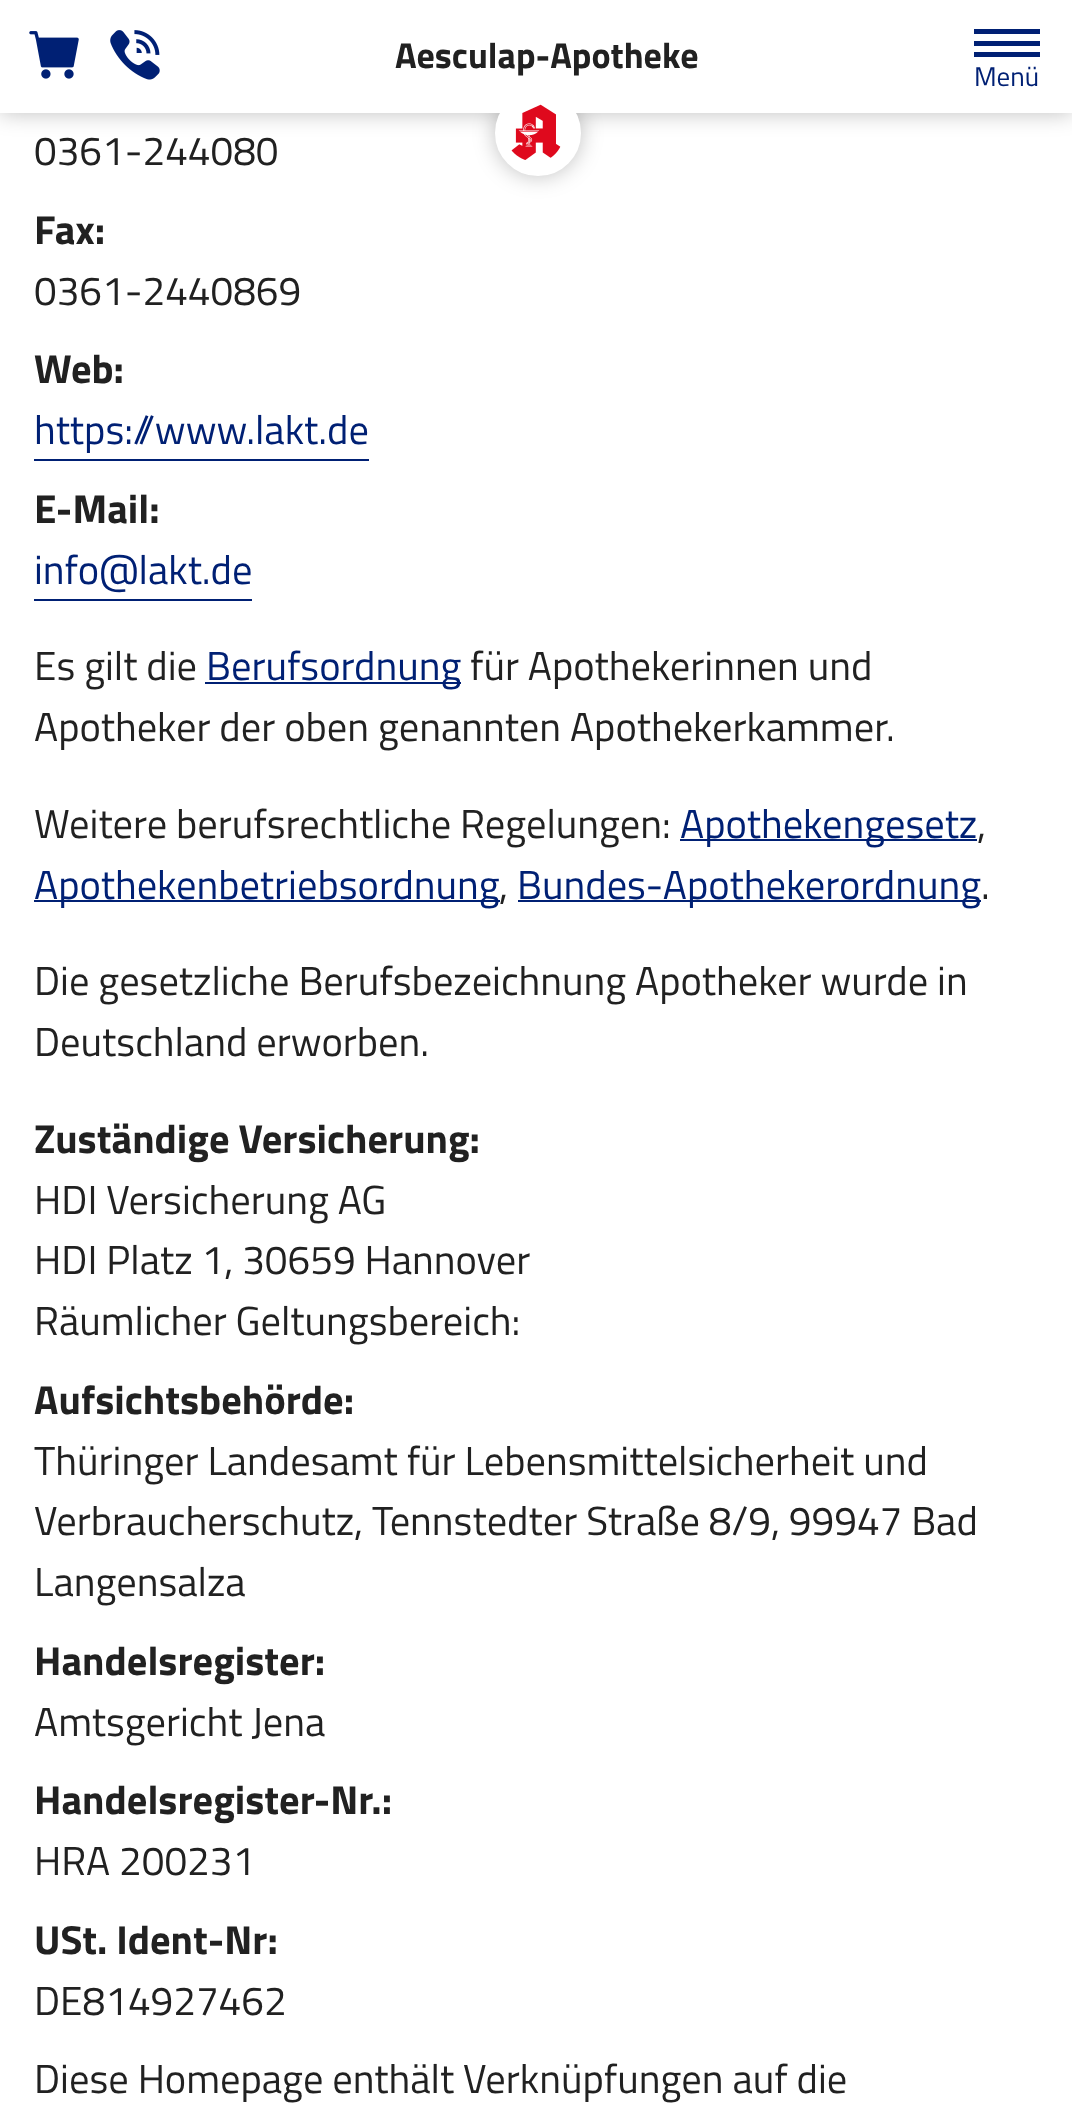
(async () => {
  const canvas = document.querySelector("canvas");
  canvas.width = 1072;
  canvas.height = 2123;
  const ctx = canvas.getContext("2d");
  ctx.miterLimit = 4;
  ctx.fontKerning = "normal";
  async function loadImage(src) {
    const img = new Image();
    img.src = src;
    await img.decode();
    return img;
  }

  ctx.fillStyle = "#ffffff";
  ctx.fillRect(0, 0, 1072, 2123);
  ctx.fillStyle = "rgba(0, 0, 0, 0.25)";
  ctx.filter = "blur(11px)";
  ctx.beginPath();
  ctx.rect(0, 0, 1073, 113);
  ctx.fill();
  ctx.filter = "none";
  ctx.filter = "blur(11px)";
  ctx.beginPath();
  ctx.roundRect(495, 90, 86, 86, 43);
  ctx.fill();
  ctx.filter = "none";
  ctx.fillStyle = "#ffffff";
  ctx.fillRect(0, 0, 1072, 113);
  ctx.beginPath();
  ctx.arc(538, 133, 39.5, 0, Math.PI * 2);
  ctx.fill();
  ctx.strokeStyle = "#ffffff";
  ctx.lineWidth = 7;
  ctx.stroke();
  ctx.drawImage(await loadImage("img/1.png"), 511, 104, 50, 56);
  ctx.drawImage(await loadImage("img/2.png"), 29, 31, 50, 48);
  ctx.drawImage(await loadImage("img/3.png"), 110, 30, 50, 50);
  for (const [x, y, w, h, color] of [
    [974, 41, 66, 5, "#002074"],
    [974, 29, 66, 5, "#002074"],
    [974, 52, 66, 5, "#002074"],
    [34, 459, 335, 2, "#002074"],
    [34, 599, 218, 2, "#002074"],
    [205, 682, 256, 2, "#002074"],
    [680, 839, 297, 2, "#002074"],
    [34, 900, 466, 2, "#002074"],
    [518, 900, 463, 2, "#002074"],
  ]) {
    ctx.fillStyle = color;
    ctx.fillRect(x, y, w, h);
  }
  ctx.font = "bold 36px Titillium Web";
  ctx.fillStyle = "#212121";
  ctx.fillText("Aesculap-Apotheke", 395, 68);
  ctx.font = "27px Titillium Web";
  ctx.fillStyle = "#002074";
  ctx.fillText("Menü", 974, 86);
  ctx.font = "40.5px Titillium Web";
  ctx.fillStyle = "#212121";
  ctx.fillText("0361-244080", 34, 165);
  ctx.font = "bold 40.5px Titillium Web";
  ctx.fillText("Fax:", 34, 244);
  ctx.font = "40.5px Titillium Web";
  ctx.fillText("0361-2440869", 34, 305);
  ctx.font = "bold 40.5px Titillium Web";
  ctx.fillText("Web:", 34, 383);
  ctx.font = "40.5px Titillium Web";
  ctx.fillStyle = "#002074";
  ctx.fillText("https://www.lakt.de", 34, 444);
  ctx.font = "bold 40.5px Titillium Web";
  ctx.fillStyle = "#212121";
  ctx.fillText("E-Mail:", 34, 523);
  ctx.font = "40.5px Titillium Web";
  ctx.fillStyle = "#002074";
  ctx.fillText("info@lakt.de", 34, 584);
  ctx.fillStyle = "#212121";
  ctx.fillText("Es gilt die", 34, 680);
  ctx.fillStyle = "#002074";
  ctx.fillText("Berufsordnung", 206, 680);
  ctx.fillStyle = "#212121";
  for (const [text, x, y] of [
    ["für Apothekerinnen und", 470, 680],
    ["Apotheker der oben genannten Apothekerkammer.", 34, 741],
    ["Weitere berufsrechtliche Regelungen:", 34, 838],
  ]) {
    ctx.fillText(text, x, y);
  }
  ctx.fillStyle = "#002074";
  ctx.fillText("Apothekengesetz", 680, 838);
  ctx.fillStyle = "#212121";
  ctx.fillText(",", 977, 838);
  ctx.fillStyle = "#002074";
  ctx.fillText("Apothekenbetriebsordnung", 34, 899);
  ctx.fillStyle = "#212121";
  ctx.fillText(",", 499, 899);
  ctx.fillStyle = "#002074";
  ctx.fillText("Bundes-Apothekerordnung", 517, 899);
  ctx.fillStyle = "#212121";
  for (const [text, x, y] of [
    [".", 981, 899],
    ["Die gesetzliche Berufsbezeichnung Apotheker wurde in", 34, 995],
    ["Deutschland erworben.", 34, 1056],
  ]) {
    ctx.fillText(text, x, y);
  }
  ctx.font = "bold 40.5px Titillium Web";
  ctx.fillText("Zuständige Versicherung:", 34, 1153);
  ctx.font = "40.5px Titillium Web";
  for (const [text, x, y] of [
    ["HDI Versicherung AG", 34, 1214],
    ["HDI Platz 1, 30659 Hannover", 34, 1274],
    ["Räumlicher Geltungsbereich:", 34, 1335],
  ]) {
    ctx.fillText(text, x, y);
  }
  ctx.font = "bold 40.5px Titillium Web";
  ctx.fillText("Aufsichtsbehörde:", 34, 1414);
  ctx.font = "40.5px Titillium Web";
  for (const [text, x, y] of [
    ["Thüringer Landesamt für Lebensmittelsicherheit und", 34, 1475],
    ["Verbraucherschutz, Tennstedter Straße 8/9, 99947 Bad", 34, 1535],
    ["Langensalza", 34, 1596],
  ]) {
    ctx.fillText(text, x, y);
  }
  ctx.font = "bold 40.5px Titillium Web";
  ctx.fillText("Handelsregister:", 34, 1675);
  ctx.font = "40.5px Titillium Web";
  ctx.fillText("Amtsgericht Jena", 34, 1736);
  ctx.font = "bold 40.5px Titillium Web";
  ctx.fillText("Handelsregister-Nr.:", 34, 1814);
  ctx.font = "40.5px Titillium Web";
  ctx.fillText("HRA 200231", 34, 1875);
  ctx.font = "bold 40.5px Titillium Web";
  ctx.fillText("USt. Ident-Nr:", 34, 1954);
  ctx.font = "40.5px Titillium Web";
  ctx.fillText("DE814927462", 34, 2015);
  ctx.fillText("Diese Homepage enthält Verknüpfungen auf die", 34, 2093);
})();
